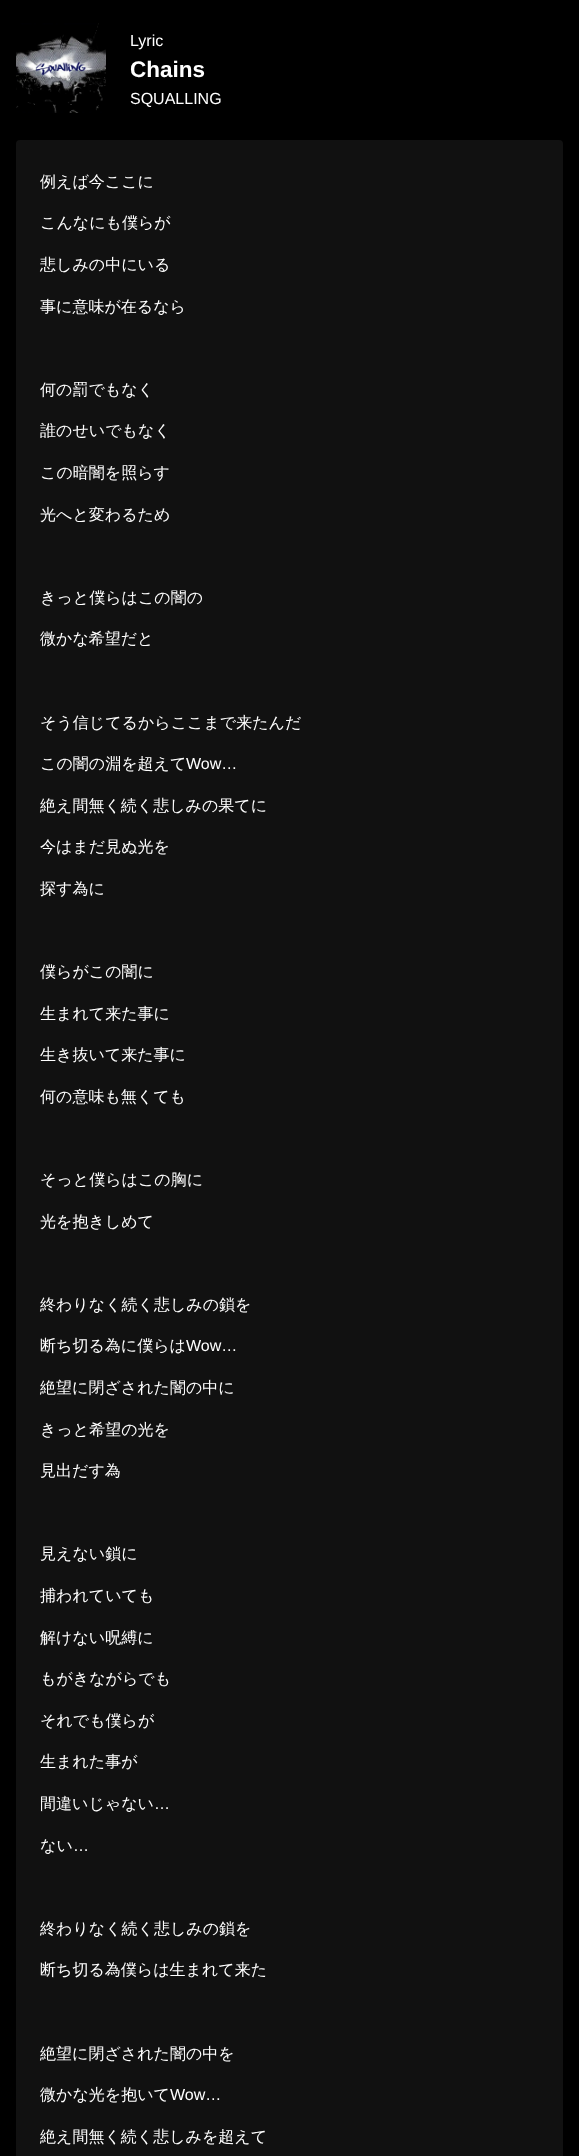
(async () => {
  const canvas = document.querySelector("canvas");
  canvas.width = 579;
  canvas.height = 2156;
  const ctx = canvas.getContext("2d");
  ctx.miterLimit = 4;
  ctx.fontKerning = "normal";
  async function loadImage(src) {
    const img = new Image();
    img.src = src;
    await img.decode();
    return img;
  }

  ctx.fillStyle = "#000000";
  ctx.fillRect(0, 0, 579, 2156);
  ctx.drawImage(await loadImage("img/1.png"), 16, 23, 90, 90);
  ctx.fillStyle = "#111111";
  ctx.beginPath();
  ctx.roundRect(16, 140, 547, 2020, 4);
  ctx.fill();
  ctx.font = "16px Liberation Sans";
  ctx.fillStyle = "#ffffff";
  ctx.fillText("Lyric", 130, 46);
  ctx.font = "bold 22.5px Liberation Sans";
  ctx.fillText("Chains", 130, 77);
  ctx.font = "16px Liberation Sans";
  ctx.fillText("SQUALLING", 130, 104);
  ctx.font = "500 16px WenQuanYi Zen Hei";
  for (const [text, x, y] of [
    ["例えば今ここに", 40, 187],
    ["こんなにも僕らが", 40, 228],
    ["悲しみの中にいる", 40, 270],
    ["事に意味が在るなら", 40, 312],
    ["何の罰でもなく", 40, 395],
    ["誰のせいでもなく", 40, 436],
    ["この暗闇を照らす", 40, 478],
    ["光へと変わるため", 40, 520],
    ["きっと僕らはこの闇の", 40, 603],
    ["微かな希望だと", 40, 644],
    ["そう信じてるからここまで来たんだ", 40, 728],
    ["この闇の淵を超えて", 40, 769],
  ]) {
    ctx.fillText(text, x, y);
  }
  ctx.font = "16px Liberation Sans";
  ctx.fillText("Wow…", 186, 769);
  ctx.font = "500 16px WenQuanYi Zen Hei";
  for (const [text, x, y] of [
    ["絶え間無く続く悲しみの果てに", 40, 811],
    ["今はまだ見ぬ光を", 40, 852],
    ["探す為に", 40, 894],
    ["僕らがこの闇に", 40, 977],
    ["生まれて来た事に", 40, 1019],
    ["生き抜いて来た事に", 40, 1060],
    ["何の意味も無くても", 40, 1102],
    ["そっと僕らはこの胸に", 40, 1185],
    ["光を抱きしめて", 40, 1227],
    ["終わりなく続く悲しみの鎖を", 40, 1310],
    ["断ち切る為に僕らは", 40, 1351],
  ]) {
    ctx.fillText(text, x, y);
  }
  ctx.font = "16px Liberation Sans";
  ctx.fillText("Wow…", 186, 1351);
  ctx.font = "500 16px WenQuanYi Zen Hei";
  for (const [text, x, y] of [
    ["絶望に閉ざされた闇の中に", 40, 1393],
    ["きっと希望の光を", 40, 1435],
    ["見出だす為", 40, 1476],
    ["見えない鎖に", 40, 1559],
    ["捕われていても", 40, 1601],
    ["解けない呪縛に", 40, 1643],
    ["もがきながらでも", 40, 1684],
    ["それでも僕らが", 40, 1726],
    ["生まれた事が", 40, 1767],
    ["間違いじゃない", 40, 1809],
  ]) {
    ctx.fillText(text, x, y);
  }
  ctx.font = "16px Liberation Sans";
  ctx.fillText("…", 154, 1809);
  ctx.font = "500 16px WenQuanYi Zen Hei";
  ctx.fillText("ない", 40, 1851);
  ctx.font = "16px Liberation Sans";
  ctx.fillText("…", 73, 1851);
  ctx.font = "500 16px WenQuanYi Zen Hei";
  for (const [text, x, y] of [
    ["終わりなく続く悲しみの鎖を", 40, 1934],
    ["断ち切る為僕らは生まれて来た", 40, 1975],
    ["絶望に閉ざされた闇の中を", 40, 2059],
    ["微かな光を抱いて", 40, 2100],
  ]) {
    ctx.fillText(text, x, y);
  }
  ctx.font = "16px Liberation Sans";
  ctx.fillText("Wow…", 170, 2100);
  ctx.font = "500 16px WenQuanYi Zen Hei";
  ctx.fillText("絶え間無く続く悲しみを超えて", 40, 2142);
})();
